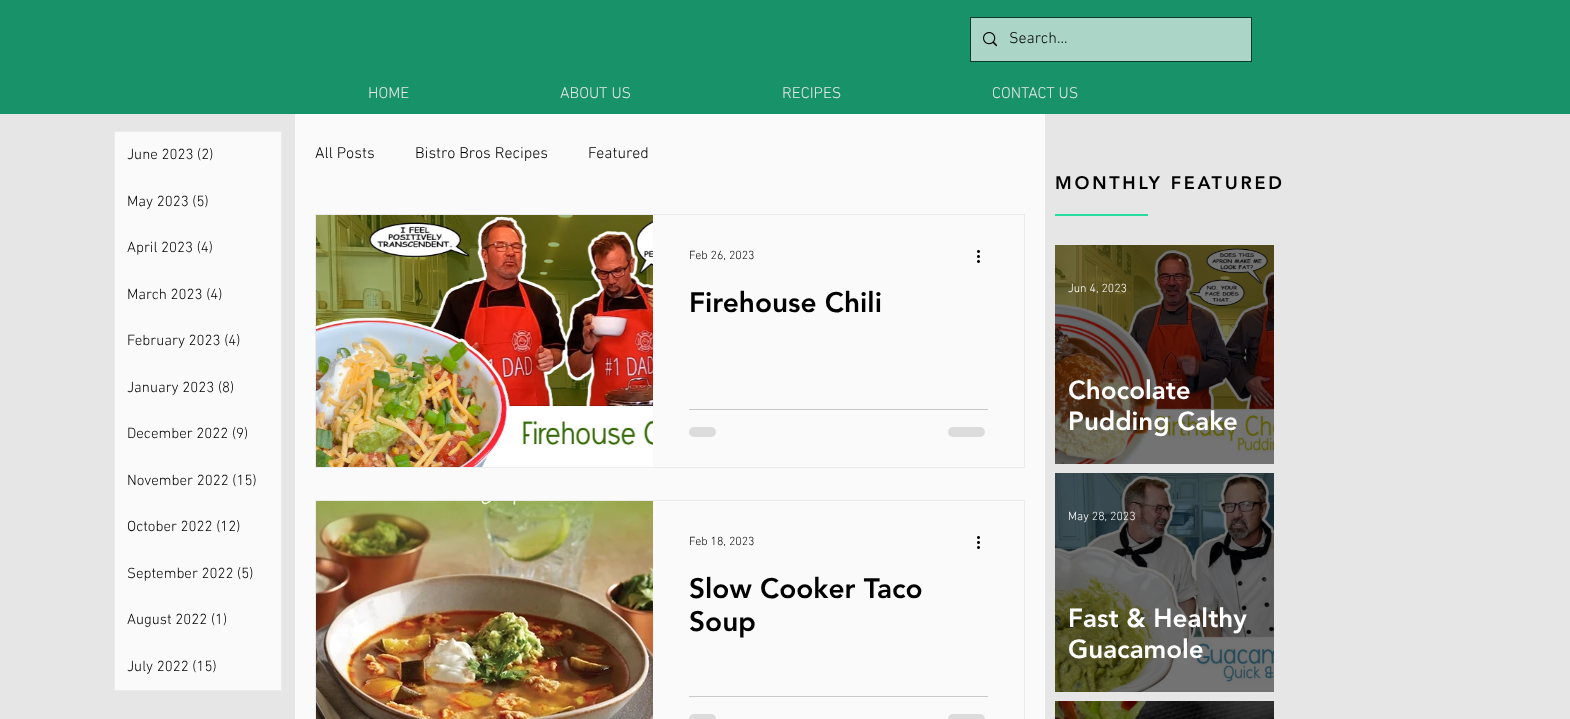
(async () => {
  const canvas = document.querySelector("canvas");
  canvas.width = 1570;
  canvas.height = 719;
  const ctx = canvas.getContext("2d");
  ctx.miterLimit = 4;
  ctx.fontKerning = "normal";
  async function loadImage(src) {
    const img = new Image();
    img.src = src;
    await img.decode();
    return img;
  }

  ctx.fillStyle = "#e6e6e6";
  ctx.fillRect(0, 0, 1570, 719);
  ctx.fillStyle = "#189369";
  ctx.fillRect(0, 0, 1570, 114);
  ctx.strokeStyle = "#0a3b2a";
  ctx.strokeRect(970.5, 17.5, 281, 44);
  ctx.fillStyle = "#abd6c7";
  ctx.fillRect(971, 18, 280, 43);
  ctx.drawImage(await loadImage("img/1.png"), 983, 32, 14, 15);
  ctx.fillStyle = "#fafafa";
  ctx.beginPath();
  ctx.rect(114.5, 131.5, 167, 559);
  ctx.fill();
  ctx.strokeStyle = "#ebebeb";
  ctx.stroke();
  ctx.fillRect(295, 114, 750, 605);
  ctx.strokeRect(315.5, 214.5, 709, 253);
  ctx.drawImage(await loadImage("img/2.png"), 316, 215, 337, 252);
  ctx.drawImage(await loadImage("img/3.png"), 977, 250, 3, 13);
  ctx.fillStyle = "#c8c8c8";
  ctx.fillRect(689, 409, 299, 1);
  ctx.fillStyle = "#dcdcdc";
  ctx.beginPath();
  ctx.roundRect(689, 427, 27, 10, 5);
  ctx.fill();
  ctx.beginPath();
  ctx.roundRect(948, 427, 37, 10, 5);
  ctx.fill();
  ctx.strokeRect(315.5, 500.5, 709, 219);
  ctx.drawImage(await loadImage("img/4.png"), 316, 501, 337, 218);
  ctx.drawImage(await loadImage("img/3.png"), 977, 536, 3, 13);
  ctx.fillStyle = "#c8c8c8";
  ctx.fillRect(689, 696, 299, 1);
  ctx.fillStyle = "#dcdcdc";
  ctx.beginPath();
  ctx.roundRect(689, 714, 27, 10, 5);
  ctx.fill();
  ctx.beginPath();
  ctx.roundRect(948, 714, 37, 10, 5);
  ctx.fill();
  ctx.fillStyle = "#24dc9d";
  ctx.fillRect(1055, 214, 93, 2);
  ctx.drawImage(await loadImage("img/5.png"), 1055, 245, 219, 219);
  ctx.drawImage(await loadImage("img/6.png"), 1055, 473, 219, 219);
  ctx.drawImage(await loadImage("img/7.png"), 1055, 701, 219, 18);
  ctx.font = "300 16px 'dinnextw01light'";
  ctx.fillStyle = "#000000";
  ctx.fillText("Search...", 1009, 43);
  ctx.fillStyle = "#e6e6e6";
  for (const [text, x, y] of [
    ["HOME", 368, 98],
    ["ABOUT US", 560, 98],
    ["RECIPES", 782, 98],
    ["CONTACT US", 992, 98],
  ]) {
    ctx.fillText(text, x, y);
  }
  ctx.font = "300 15px 'dinnextw01light'";
  ctx.fillStyle = "#000000";
  for (const [text, x, y] of [
    ["June 2023 (2)", 127, 159],
    ["May 2023 (5)", 127, 206],
    ["April 2023 (4)", 127, 252],
    ["March 2023 (4)", 127, 299],
    ["February 2023 (4)", 127, 345],
    ["January 2023 (8)", 127, 392],
    ["December 2022 (9)", 127, 438],
    ["November 2022 (15)", 127, 485],
    ["October 2022 (12)", 127, 531],
    ["September 2022 (5)", 127, 578],
    ["August 2022 (1)", 127, 624],
    ["July 2022 (15)", 127, 671],
  ]) {
    ctx.fillText(text, x, y);
  }
  ctx.font = "300 16px 'dinnextw01light'";
  for (const [text, x, y] of [
    ["All Posts", 315, 158],
    ["Bistro Bros Recipes", 415, 158],
    ["Featured", 588, 158],
  ]) {
    ctx.fillText(text, x, y);
  }
  ctx.font = "300 12px 'dinnextw01light'";
  ctx.fillText("Feb 26, 2023", 689, 259);
  ctx.font = "900 28px 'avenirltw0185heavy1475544'";
  ctx.fillText("Firehouse Chili", 689, 312);
  ctx.font = "300 12px 'dinnextw01light'";
  ctx.fillText("Feb 18, 2023", 689, 545);
  ctx.font = "900 28px 'avenirltw0185heavy1475544'";
  ctx.fillText("Slow Cooker Taco", 689, 598);
  ctx.fillText("Soup", 689, 631);
  ctx.letterSpacing = "2.75px";
  ctx.font = "900 18px 'avenirltw0185heavy1475544'";
  ctx.fillText("MONTHLY FEATURED", 1055, 189);
  ctx.letterSpacing = "0px";
  ctx.font = "300 12px 'dinnextw01light'";
  ctx.fillStyle = "#ffffff";
  ctx.fillText("Jun 4, 2023", 1068, 292);
  ctx.font = "900 26px 'avenirltw0185heavy1475544'";
  ctx.fillText("Chocolate", 1068, 399);
  ctx.fillText("Pudding Cake", 1068, 430);
  ctx.font = "300 12px 'dinnextw01light'";
  ctx.fillText("May 28, 2023", 1068, 520);
  ctx.font = "900 26px 'avenirltw0185heavy1475544'";
  ctx.fillText("Fast & Healthy", 1068, 627);
  ctx.fillText("Guacamole", 1068, 658);
})();
